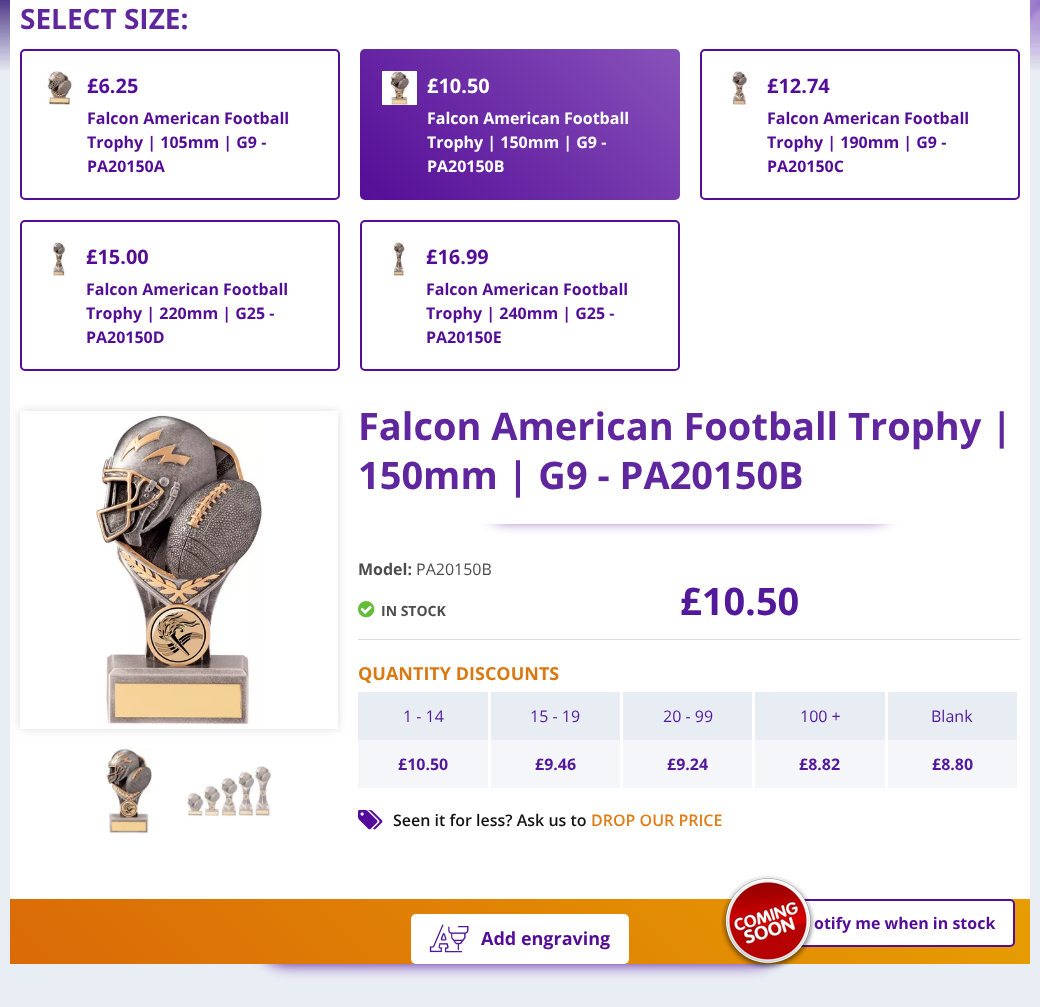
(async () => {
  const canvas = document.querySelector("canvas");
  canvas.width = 1040;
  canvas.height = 1007;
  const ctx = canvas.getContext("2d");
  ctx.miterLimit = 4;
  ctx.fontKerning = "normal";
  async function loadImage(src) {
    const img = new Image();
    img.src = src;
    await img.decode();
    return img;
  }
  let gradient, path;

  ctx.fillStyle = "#e9eef5";
  ctx.fillRect(0, 0, 1040, 1007);
  ctx.drawImage(await loadImage("img/1.png"), 0, 0, 1040, 71);
  ctx.fillStyle = "#540d97";
  ctx.filter = "blur(7.5px)";
  ctx.beginPath();
  ctx.roundRect(260, 914, 520, 50, 25);
  ctx.fill();
  ctx.filter = "none";
  ctx.fillStyle = "#ffffff";
  ctx.fillRect(10, 0, 1020, 899);
  ctx.beginPath();
  ctx.roundRect(21, 50, 318, 149, 4);
  ctx.strokeStyle = "#540d97";
  ctx.lineWidth = 2;
  ctx.stroke();
  ctx.drawImage(await loadImage("img/2.png"), 47, 71, 26, 34);
  gradient = ctx.createLinearGradient(402, 242, 638, 6.8);
  gradient.addColorStop(0, "#540d97");
  gradient.addColorStop(1, "#8852ba");
  ctx.fillStyle = gradient;
  ctx.beginPath();
  ctx.roundRect(360, 49, 320, 151, 5);
  ctx.fill();
  ctx.drawImage(await loadImage("img/3.png"), 382, 71, 35, 34);
  ctx.beginPath();
  ctx.roundRect(701, 50, 318, 149, 4);
  ctx.stroke();
  ctx.drawImage(await loadImage("img/4.png"), 728, 71, 23, 34);
  ctx.beginPath();
  ctx.roundRect(21, 221, 318, 149, 4);
  ctx.stroke();
  ctx.drawImage(await loadImage("img/5.png"), 52, 242, 15, 34);
  ctx.beginPath();
  ctx.roundRect(361, 221, 318, 149, 4);
  ctx.stroke();
  ctx.drawImage(await loadImage("img/6.png"), 392, 242, 16, 34);
  ctx.save();
  path = new Path2D("M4 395H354V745H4ZM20 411H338V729H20Z");
  ctx.clip(path, "evenodd");
  ctx.fillStyle = "#dddddd";
  ctx.filter = "blur(5px)";
  ctx.beginPath();
  ctx.rect(20, 411, 318, 318);
  ctx.fill();
  ctx.filter = "none";
  ctx.restore();
  ctx.drawImage(await loadImage("img/7.png"), 96, 414, 168, 312);
  ctx.drawImage(await loadImage("img/8.png"), 106, 748, 46, 86);
  ctx.drawImage(await loadImage("img/9.png"), 186, 766, 86, 51);
  ctx.fillStyle = "#540d97";
  ctx.filter = "blur(7.5px)";
  ctx.beginPath();
  ctx.roundRect(491, 493, 397, 26, 13);
  ctx.fill();
  ctx.filter = "none";
  ctx.fillStyle = "#ffffff";
  ctx.fillRect(475, 476, 429, 48);
  ctx.fillStyle = "#dddddd";
  ctx.fillRect(358, 639, 662, 1);
  ctx.drawImage(await loadImage("img/10.png"), 358, 601, 17, 17);
  for (const [x, y, w, h, color] of [
    [358, 692, 130, 48, "#e8edf3"],
    [358, 740, 130, 48, "#f5f6fa"],
    [491, 692, 129, 48, "#e8edf3"],
    [491, 740, 129, 48, "#f5f6fa"],
    [623, 692, 129, 48, "#e8edf3"],
    [623, 740, 129, 48, "#f5f6fa"],
    [755, 692, 130, 48, "#e8edf3"],
    [755, 740, 130, 48, "#f5f6fa"],
    [888, 692, 129, 48, "#e8edf3"],
    [888, 740, 129, 48, "#f5f6fa"],
  ]) {
    ctx.fillStyle = color;
    ctx.fillRect(x, y, w, h);
  }
  ctx.drawImage(await loadImage("img/11.png"), 358, 809, 25, 21);
  gradient = ctx.createLinearGradient(249, 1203, 791, 660);
  gradient.addColorStop(0, "#da6a08");
  gradient.addColorStop(1, "#e79e01");
  ctx.fillStyle = gradient;
  ctx.fillRect(10, 899, 1020, 65);
  ctx.fillStyle = "#ffffff";
  ctx.beginPath();
  ctx.roundRect(782, 900, 232, 46, 4);
  ctx.fill();
  ctx.stroke();
  ctx.beginPath();
  ctx.roundRect(411, 914, 218, 50, 5);
  ctx.fill();
  ctx.drawImage(await loadImage("img/13.png"), 429, 924, 40, 29);
  ctx.font = "bold 28px Open Sans";
  ctx.fillStyle = "#60269e";
  ctx.fillText("SELECT SIZE:", 20, 29);
  ctx.font = "bold 20px Open Sans";
  ctx.fillStyle = "#540d97";
  ctx.fillText("£6.25", 87, 93);
  ctx.font = "bold 16px Open Sans";
  for (const [text, x, y] of [
    ["Falcon American Football", 87, 124],
    ["Trophy | 105mm | G9 -", 87, 148],
    ["PA20150A", 87, 172],
  ]) {
    ctx.fillText(text, x, y);
  }
  ctx.font = "bold 20px Open Sans";
  ctx.fillStyle = "#ffffff";
  ctx.fillText("£10.50", 427, 93);
  ctx.font = "bold 16px Open Sans";
  for (const [text, x, y] of [
    ["Falcon American Football", 427, 124],
    ["Trophy | 150mm | G9 -", 427, 148],
    ["PA20150B", 427, 172],
  ]) {
    ctx.fillText(text, x, y);
  }
  ctx.font = "bold 20px Open Sans";
  ctx.fillStyle = "#540d97";
  ctx.fillText("£12.74", 767, 93);
  ctx.font = "bold 16px Open Sans";
  for (const [text, x, y] of [
    ["Falcon American Football", 767, 124],
    ["Trophy | 190mm | G9 -", 767, 148],
    ["PA20150C", 767, 172],
  ]) {
    ctx.fillText(text, x, y);
  }
  ctx.font = "bold 20px Open Sans";
  ctx.fillText("£15.00", 86, 264);
  ctx.font = "bold 16px Open Sans";
  for (const [text, x, y] of [
    ["Falcon American Football", 86, 295],
    ["Trophy | 220mm | G25 -", 86, 319],
    ["PA20150D", 86, 343],
  ]) {
    ctx.fillText(text, x, y);
  }
  ctx.font = "bold 20px Open Sans";
  ctx.fillText("£16.99", 426, 264);
  ctx.font = "bold 16px Open Sans";
  for (const [text, x, y] of [
    ["Falcon American Football", 426, 295],
    ["Trophy | 240mm | G25 -", 426, 319],
    ["PA20150E", 426, 343],
  ]) {
    ctx.fillText(text, x, y);
  }
  ctx.font = "bold 38px Open Sans";
  ctx.fillStyle = "#60269e";
  ctx.fillText("Falcon American Football Trophy |", 358, 440);
  ctx.fillText("150mm | G9 - PA20150B", 358, 489);
  ctx.font = "bold 16px Open Sans";
  ctx.fillStyle = "#4d4d4d";
  ctx.fillText("Model:", 358, 575);
  ctx.font = "16px Open Sans";
  ctx.fillText("PA20150B", 416, 575);
  ctx.font = "bold 14px Open Sans";
  ctx.fillText("IN STOCK", 381, 616);
  ctx.font = "bold 38px Open Sans";
  ctx.fillStyle = "#521a9a";
  ctx.fillText("£10.50", 680, 615);
  ctx.font = "bold 18px Open Sans";
  ctx.fillStyle = "#d97912";
  ctx.fillText("QUANTITY DISCOUNTS", 358, 680);
  ctx.font = "16px Open Sans";
  ctx.fillStyle = "#521a9a";
  ctx.fillText("1 - 14", 403, 722);
  ctx.font = "bold 16px Open Sans";
  ctx.fillText("£10.50", 398, 770);
  ctx.font = "16px Open Sans";
  ctx.fillText("15 - 19", 530, 722);
  ctx.font = "bold 16px Open Sans";
  ctx.fillText("£9.46", 535, 770);
  ctx.font = "16px Open Sans";
  ctx.fillText("20 - 99", 663, 722);
  ctx.font = "bold 16px Open Sans";
  ctx.fillText("£9.24", 667, 770);
  ctx.font = "16px Open Sans";
  ctx.fillText("100 +", 800, 722);
  ctx.font = "bold 16px Open Sans";
  ctx.fillText("£8.82", 799, 770);
  ctx.font = "16px Open Sans";
  ctx.fillText("Blank", 931, 722);
  ctx.font = "bold 16px Open Sans";
  ctx.fillText("£8.80", 932, 770);
  ctx.font = "600 16px Open Sans";
  ctx.fillStyle = "#131313";
  ctx.fillText("Seen it for less? Ask us to", 393, 826);
  ctx.fillStyle = "#df7c16";
  ctx.fillText("DROP OUR PRICE", 591, 826);
  ctx.font = "bold 16px Open Sans";
  ctx.fillStyle = "#540d97";
  ctx.fillText("otify me when in stock", 814, 929);
  ctx.drawImage(await loadImage("img/12.png"), 721, 875, 94, 95);
  ctx.font = "bold 18px Open Sans";
  ctx.fillText("Add engraving", 481, 945);
})();
